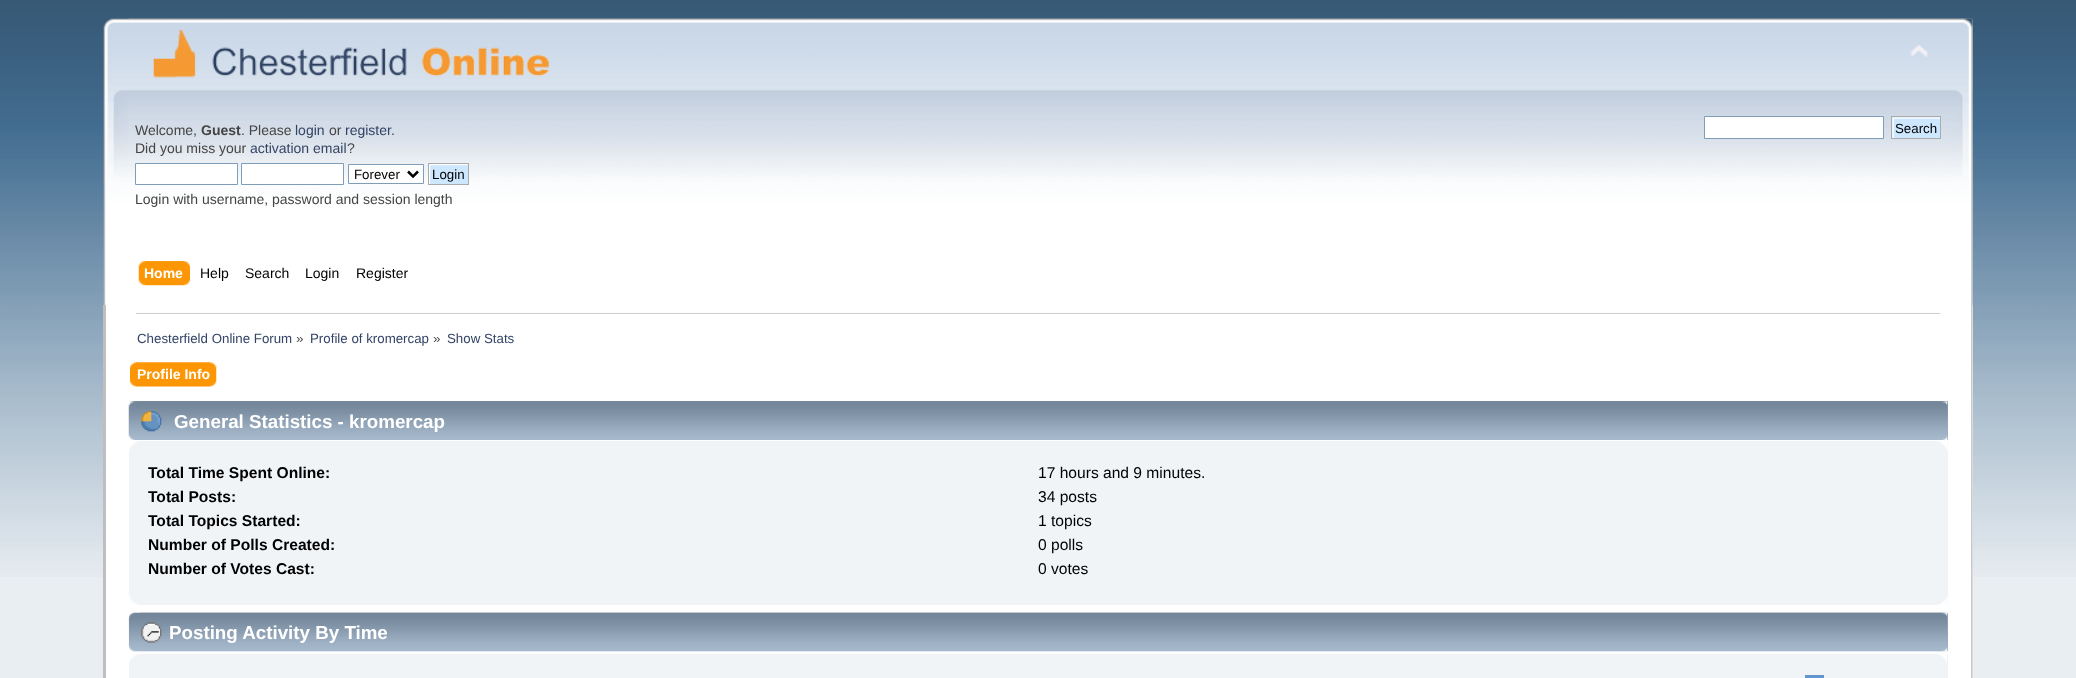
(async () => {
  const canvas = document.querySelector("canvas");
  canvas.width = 2076;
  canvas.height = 678;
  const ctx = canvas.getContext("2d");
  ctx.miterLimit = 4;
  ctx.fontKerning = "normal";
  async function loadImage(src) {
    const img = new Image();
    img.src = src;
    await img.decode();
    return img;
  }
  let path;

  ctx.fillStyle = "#e9eef2";
  ctx.fillRect(0, 0, 2076, 678);
  ctx.drawImage(await loadImage("img/1.png"), 0, 0, 2076, 577);
  ctx.drawImage(await loadImage("img/2.png"), 103, 18, 1870, 287);
  ctx.drawImage(await loadImage("img/3.png"), 128, 18, 1845, 287);
  ctx.drawImage(await loadImage("img/4.png"), 153, 29, 396, 49);
  ctx.drawImage(await loadImage("img/5.png"), 1910, 45, 18, 13);
  ctx.fillStyle = "#ffffff";
  ctx.beginPath();
  ctx.rect(135.5, 163.5, 102, 21);
  ctx.fill();
  ctx.strokeStyle = "#7f9db9";
  ctx.stroke();
  ctx.beginPath();
  ctx.rect(241.5, 163.5, 102, 21);
  ctx.fill();
  ctx.stroke();
  ctx.beginPath();
  ctx.rect(348.5, 164.5, 75, 19);
  ctx.fill();
  ctx.stroke();
  path = new Path2D("M408 171.5L413 176.5L418 171.5");
  ctx.strokeStyle = "#000000";
  ctx.lineWidth = 2.5;
  ctx.stroke(path);
  ctx.drawImage(await loadImage("img/6.png"), 429, 164, 39, 20);
  ctx.strokeStyle = "#aaaaaa";
  ctx.lineWidth = 1;
  ctx.strokeRect(428.5, 163.5, 40, 21);
  ctx.beginPath();
  ctx.rect(1704.5, 116.5, 179, 22);
  ctx.fill();
  ctx.strokeStyle = "#7f9db9";
  ctx.stroke();
  ctx.fillStyle = "#cde7ff";
  ctx.fillRect(1892, 117, 48, 21);
  ctx.drawImage(await loadImage("img/7.png"), 1892, 117, 50, 22);
  ctx.strokeStyle = "#aaaaaa";
  ctx.strokeRect(1891.5, 116.5, 49, 22);
  ctx.drawImage(await loadImage("img/8.png"), 145, 261, 45, 25);
  ctx.drawImage(await loadImage("img/9.png"), 138, 261, 46, 25);
  ctx.fillStyle = "#ffffff";
  ctx.fillRect(106, 305, 1867, 373);
  ctx.fillStyle = "#bebebe";
  ctx.fillRect(103, 305, 3, 373);
  ctx.drawImage(await loadImage("img/10.png"), 1971, 305, 2, 373);
  ctx.fillStyle = "#cccccc";
  ctx.fillRect(136, 313, 1804, 1);
  ctx.drawImage(await loadImage("img/11.png"), 136, 362, 81, 25);
  ctx.drawImage(await loadImage("img/12.png"), 130, 362, 80, 25);
  ctx.fillStyle = "#99abbf";
  ctx.fillRect(129, 401, 1819, 39);
  ctx.drawImage(await loadImage("img/13.png"), 128, 401, 1820, 39);
  ctx.drawImage(await loadImage("img/14.png"), 140, 401, 1808, 39);
  ctx.drawImage(await loadImage("img/15.png"), 141, 411, 21, 21);
  ctx.fillStyle = "#f0f4f7";
  ctx.fillRect(129, 441, 1819, 164);
  ctx.drawImage(await loadImage("img/16.png"), 128, 441, 10, 14);
  ctx.drawImage(await loadImage("img/17.png"), 1938, 441, 10, 9);
  ctx.drawImage(await loadImage("img/18.png"), 128, 592, 11, 13);
  ctx.drawImage(await loadImage("img/19.png"), 1938, 596, 10, 9);
  ctx.fillStyle = "#99abbf";
  ctx.fillRect(1947, 613, 1, 38);
  ctx.drawImage(await loadImage("img/20.png"), 128, 612, 1820, 40);
  ctx.drawImage(await loadImage("img/21.png"), 140, 612, 1808, 40);
  ctx.drawImage(await loadImage("img/22.png"), 141, 622, 21, 21);
  ctx.fillStyle = "#f0f4f7";
  ctx.fillRect(129, 654, 1819, 24);
  ctx.drawImage(await loadImage("img/23.png"), 129, 653, 1818, 10);
  ctx.drawImage(await loadImage("img/24.png"), 1938, 654, 9, 9);
  ctx.fillStyle = "#6294ce";
  ctx.fillRect(1805, 675, 19, 3);
  ctx.font = "14px Liberation Sans";
  ctx.fillStyle = "#444444";
  ctx.fillText("Welcome,", 135, 135);
  ctx.font = "bold 14px Liberation Sans";
  ctx.fillText("Guest", 201, 135);
  ctx.font = "14px Liberation Sans";
  ctx.fillText(". Please", 241, 135);
  ctx.fillStyle = "#334466";
  ctx.fillText("login", 295, 135);
  ctx.fillStyle = "#444444";
  ctx.fillText("or", 329, 135);
  ctx.fillStyle = "#334466";
  ctx.fillText("register", 345, 135);
  ctx.fillStyle = "#444444";
  ctx.fillText(".", 391, 135);
  ctx.fillText("Did you miss your", 135, 153);
  ctx.fillStyle = "#334466";
  ctx.fillText("activation email", 250, 153);
  ctx.fillStyle = "#444444";
  ctx.fillText("?", 347, 153);
  ctx.font = "13.3px Liberation Sans";
  ctx.fillStyle = "#000000";
  ctx.fillText("Forever", 354, 179);
  ctx.fillText("Login", 432, 179);
  ctx.font = "14px Liberation Sans";
  ctx.fillStyle = "#444444";
  ctx.fillText("Login with username, password and session length", 135, 204);
  ctx.font = "13.3px Liberation Sans";
  ctx.fillStyle = "#000000";
  ctx.fillText("Search", 1895, 133);
  ctx.font = "bold 14px Liberation Sans";
  ctx.fillStyle = "#ffffff";
  ctx.fillText("Home", 144, 278);
  ctx.font = "14px Liberation Sans";
  ctx.fillStyle = "#000000";
  for (const [text, x, y] of [
    ["Help", 200, 278],
    ["Search", 245, 278],
    ["Login", 305, 278],
    ["Register", 356, 278],
  ]) {
    ctx.fillText(text, x, y);
  }
  ctx.font = "13.3px Liberation Sans";
  ctx.fillStyle = "#334466";
  ctx.fillText("Chesterfield Online Forum", 137, 343);
  ctx.fillStyle = "#444444";
  ctx.fillText("»", 296, 343);
  ctx.fillStyle = "#334466";
  ctx.fillText("Profile of kromercap", 310, 343);
  ctx.fillStyle = "#444444";
  ctx.fillText("»", 433, 343);
  ctx.fillStyle = "#334466";
  ctx.fillText("Show Stats", 447, 343);
  ctx.font = "bold 14px Liberation Sans";
  ctx.fillStyle = "#ffffff";
  ctx.fillText("Profile Info", 137, 379);
  ctx.font = "bold 18.75px Liberation Sans";
  ctx.fillText("General Statistics - kromercap", 174, 428);
  ctx.font = "bold 15.6px Liberation Sans";
  ctx.fillStyle = "#000000";
  ctx.fillText("Total Time Spent Online:", 148, 478);
  ctx.font = "15.6px Liberation Sans";
  ctx.fillText("17 hours and 9 minutes.", 1038, 478);
  ctx.font = "bold 15.6px Liberation Sans";
  ctx.fillText("Total Posts:", 148, 502);
  ctx.font = "15.6px Liberation Sans";
  ctx.fillText("34 posts", 1038, 502);
  ctx.font = "bold 15.6px Liberation Sans";
  ctx.fillText("Total Topics Started:", 148, 526);
  ctx.font = "15.6px Liberation Sans";
  ctx.fillText("1 topics", 1038, 526);
  ctx.font = "bold 15.6px Liberation Sans";
  ctx.fillText("Number of Polls Created:", 148, 550);
  ctx.font = "15.6px Liberation Sans";
  ctx.fillText("0 polls", 1038, 550);
  ctx.font = "bold 15.6px Liberation Sans";
  ctx.fillText("Number of Votes Cast:", 148, 574);
  ctx.font = "15.6px Liberation Sans";
  ctx.fillText("0 votes", 1038, 574);
  ctx.font = "bold 18.75px Liberation Sans";
  ctx.fillStyle = "#ffffff";
  ctx.fillText("Posting Activity By Time", 169, 639);
})();
